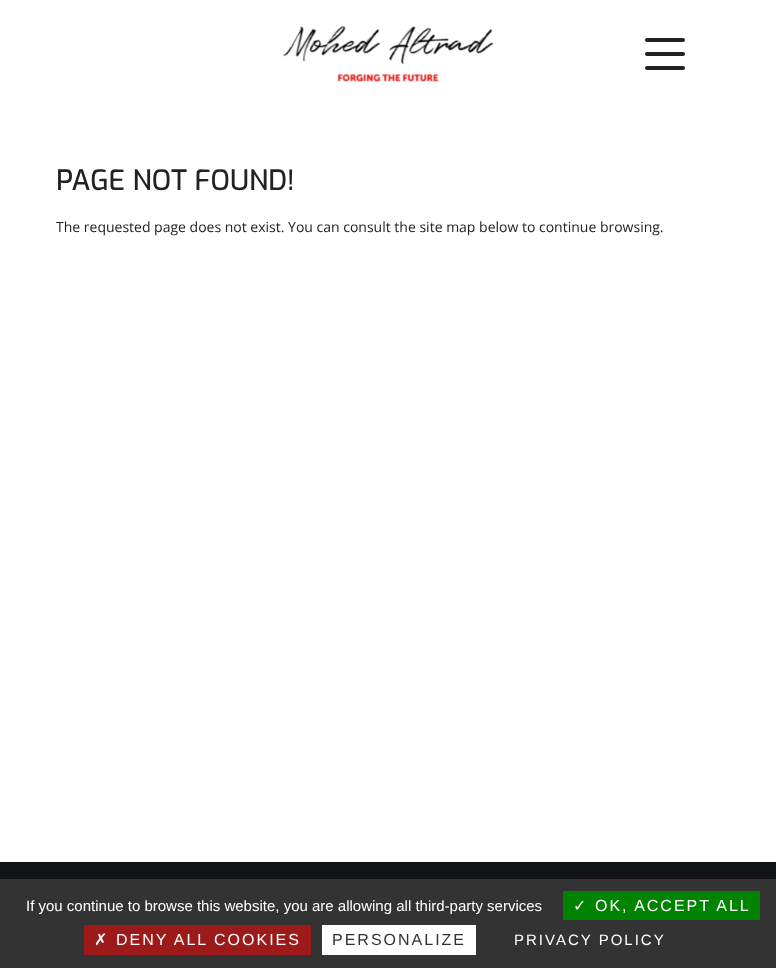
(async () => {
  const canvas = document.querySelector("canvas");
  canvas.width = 776;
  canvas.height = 968;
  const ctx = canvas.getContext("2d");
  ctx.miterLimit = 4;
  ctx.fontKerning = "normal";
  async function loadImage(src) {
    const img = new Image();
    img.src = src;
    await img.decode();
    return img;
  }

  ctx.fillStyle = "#ffffff";
  ctx.fillRect(0, 0, 776, 968);
  ctx.drawImage(await loadImage("img/1.png"), 283, 26, 211, 56);
  ctx.fillStyle = "#222222";
  ctx.beginPath();
  ctx.roundRect(645, 38, 40, 4, 2);
  ctx.fill();
  ctx.beginPath();
  ctx.roundRect(645, 52, 40, 4, 2);
  ctx.fill();
  ctx.beginPath();
  ctx.roundRect(645, 66, 40, 4, 2);
  ctx.fill();
  for (const [x, y, w, h, color] of [
    [0, 862, 776, 17, "#111414"],
    [0, 879, 776, 89, "#333333"],
    [563, 891, 197, 29, "#008300"],
    [84, 925, 227, 30, "#9c1a1a"],
    [322, 925, 154, 30, "#ffffff"],
  ]) {
    ctx.fillStyle = color;
    ctx.fillRect(x, y, w, h);
  }
  ctx.font = "500 28px Exo";
  ctx.fillStyle = "#222222";
  ctx.fillText("PAGE NOT FOUND!", 56, 190);
  ctx.font = "14px Open Sans";
  ctx.fillText("The requested page does not exist. You can consult the site map below to continue browsing.", 56, 232);
  ctx.font = "15px Liberation Sans";
  ctx.fillStyle = "#ffffff";
  ctx.fillText("If you continue to browse this website, you are allowing all third-party services", 26, 911);
  ctx.letterSpacing = "2px";
  ctx.font = "16px DejaVu Sans";
  ctx.fillText("✓", 573, 911);
  ctx.font = "16px Liberation Sans";
  ctx.fillText("OK, ACCEPT ALL", 595, 911);
  ctx.font = "16px DejaVu Sans";
  ctx.fillText("✗", 94, 945);
  ctx.font = "16px Liberation Sans";
  ctx.fillText("DENY ALL COOKIES", 116, 945);
  ctx.fillStyle = "#333333";
  ctx.fillText("PERSONALIZE", 332, 945);
  ctx.font = "15px Liberation Sans";
  ctx.fillStyle = "#ffffff";
  ctx.fillText("PRIVACY POLICY", 514, 945);
})();
